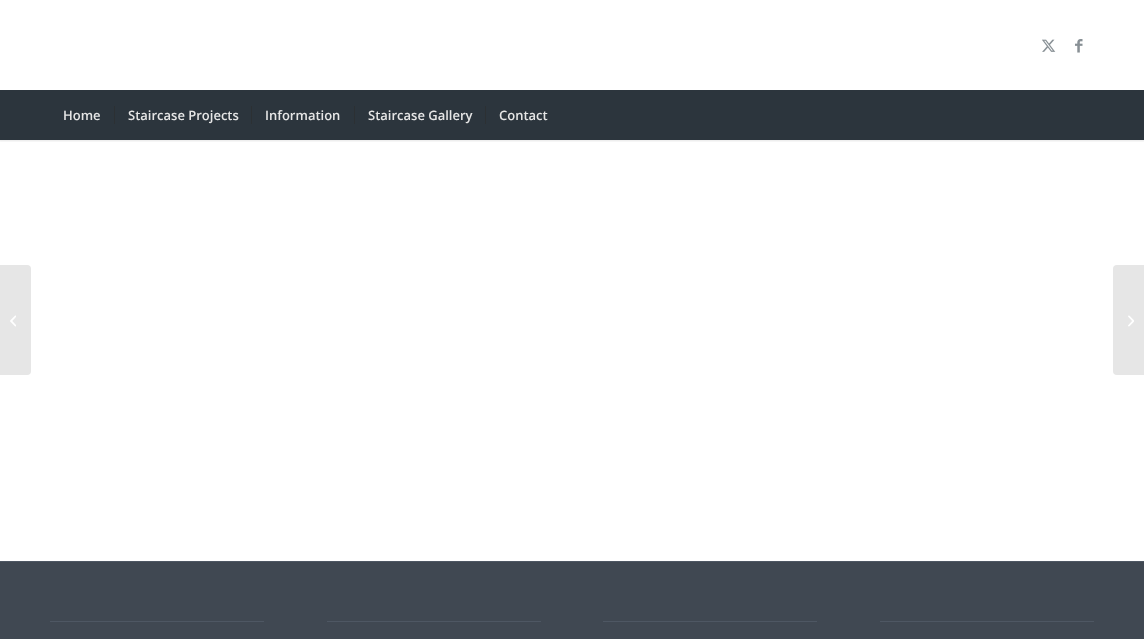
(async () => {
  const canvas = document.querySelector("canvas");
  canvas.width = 1144;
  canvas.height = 639;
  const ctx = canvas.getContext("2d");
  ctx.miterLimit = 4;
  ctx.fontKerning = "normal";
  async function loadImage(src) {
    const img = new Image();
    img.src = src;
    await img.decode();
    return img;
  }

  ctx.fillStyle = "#ffffff";
  ctx.fillRect(0, 0, 1144, 639);
  ctx.save();
  ctx.beginPath();
  ctx.rect(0, 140, 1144, 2);
  ctx.clip();
  ctx.fillStyle = "rgba(0, 0, 0, 0.1)";
  ctx.filter = "blur(1px)";
  ctx.beginPath();
  ctx.rect(-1, -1, 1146, 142);
  ctx.fill();
  ctx.filter = "none";
  ctx.restore();
  ctx.drawImage(await loadImage("img/1.png"), 1042, 39, 14, 13);
  ctx.drawImage(await loadImage("img/2.png"), 1075, 39, 8, 14);
  for (const [x, y, w, h, color] of [
    [0, 90, 1144, 50, "#2c353d"],
    [114, 106, 1, 18, "#2c3033"],
    [251, 106, 1, 18, "#2c3033"],
    [354, 106, 1, 18, "#2c3033"],
    [485, 106, 1, 18, "#2c3033"],
  ]) {
    ctx.fillStyle = color;
    ctx.fillRect(x, y, w, h);
  }
  ctx.fillStyle = "#e6e6e6";
  ctx.beginPath();
  ctx.roundRect(0, 265, 31, 110, [0, 4, 4, 0]);
  ctx.fill();
  ctx.drawImage(await loadImage("img/3.png"), 10, 315, 6, 12);
  ctx.beginPath();
  ctx.roundRect(1113, 265, 31, 110, [4, 0, 0, 4]);
  ctx.fill();
  ctx.drawImage(await loadImage("img/4.png"), 1128, 315, 6, 12);
  for (const [x, y, w, h, color] of [
    [0, 562, 1144, 77, "#404852"],
    [0, 561, 1144, 1, "#4e5763"],
    [50, 621, 214, 1, "#4e5763"],
    [327, 621, 214, 1, "#4e5763"],
    [603, 621, 214, 1, "#4e5763"],
    [880, 621, 214, 1, "#4e5763"],
  ]) {
    ctx.fillStyle = color;
    ctx.fillRect(x, y, w, h);
  }
  ctx.font = "600 13px Open Sans";
  ctx.fillStyle = "#e6e6e6";
  for (const [text, x, y] of [
    ["Home", 63, 120],
    ["Staircase Projects", 128, 120],
    ["Information", 265, 120],
    ["Staircase Gallery", 368, 120],
    ["Contact", 499, 120],
  ]) {
    ctx.fillText(text, x, y);
  }
})();
